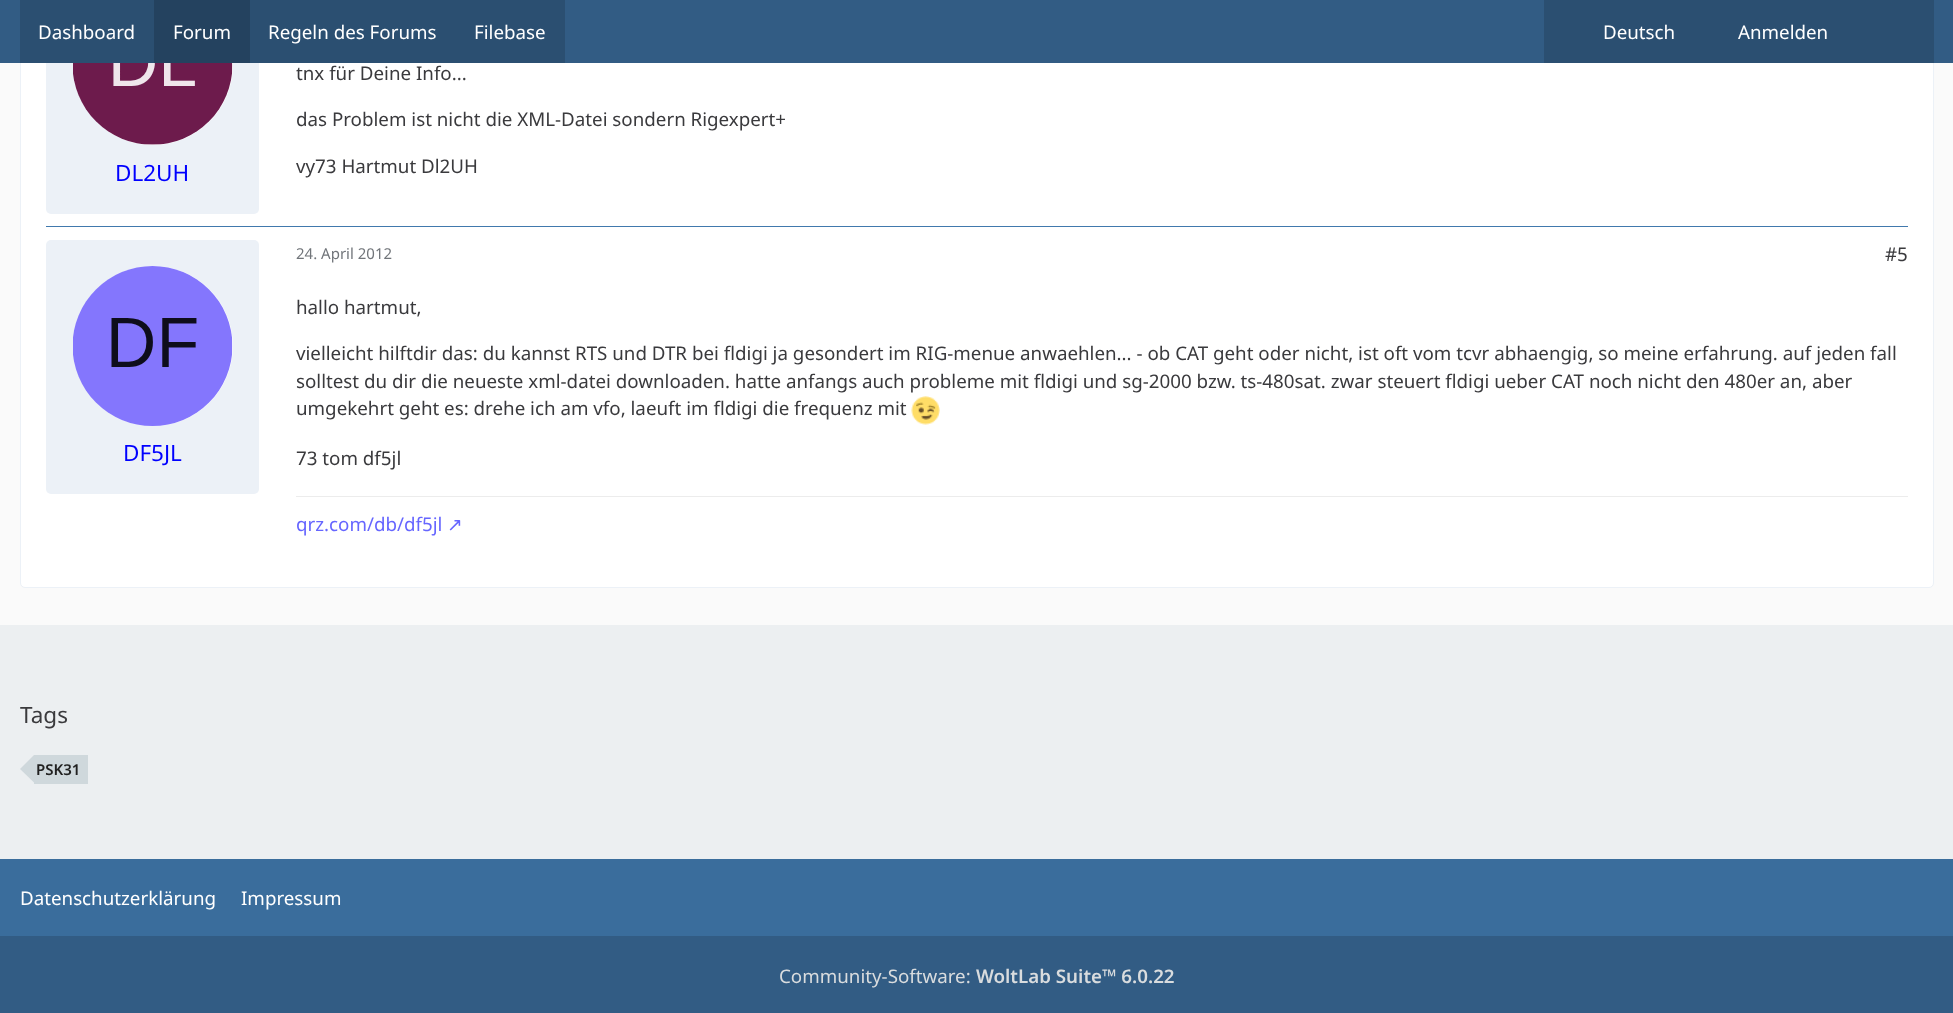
(async () => {
  const canvas = document.querySelector("canvas");
  canvas.width = 1953;
  canvas.height = 1013;
  const ctx = canvas.getContext("2d");
  ctx.miterLimit = 4;
  ctx.fontKerning = "normal";
  async function loadImage(src) {
    const img = new Image();
    img.src = src;
    await img.decode();
    return img;
  }
  let path;

  ctx.fillStyle = "#fafafa";
  ctx.fillRect(0, 0, 1953, 1013);
  ctx.fillStyle = "#ffffff";
  ctx.beginPath();
  ctx.roundRect(20.5, -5.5, 1913, 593, 4.5);
  ctx.fill();
  ctx.strokeStyle = "#ecf1f7";
  ctx.stroke();
  ctx.fillStyle = "#ecf1f7";
  ctx.beginPath();
  ctx.roundRect(46, -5, 213, 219, 5);
  ctx.fill();
  ctx.fillStyle = "#ffffff";
  ctx.beginPath();
  ctx.arc(153, 65, 80, 0, Math.PI * 2);
  ctx.fill();
  for (const [x, y, w, h, color] of [
    [0, 0, 1953, 63, "#325c84"],
    [20, 0, 134, 63, "#2b4f71"],
    [154, 0, 96, 63, "#24425f"],
    [250, 0, 315, 63, "#2b4f71"],
    [1544, 0, 390, 63, "#2b4f71"],
    [46, 226, 1862, 1, "#4179ad"],
  ]) {
    ctx.fillStyle = color;
    ctx.fillRect(x, y, w, h);
  }
  ctx.drawImage(await loadImage("img/1.png"), 73, 63, 160, 82);
  ctx.fillStyle = "#ecf1f7";
  ctx.beginPath();
  ctx.roundRect(46, 240, 213, 254, 5);
  ctx.fill();
  ctx.fillStyle = "#ffffff";
  ctx.beginPath();
  ctx.arc(153, 346, 80, 0, Math.PI * 2);
  ctx.fill();
  ctx.drawImage(await loadImage("img/2.png"), 73, 266, 160, 160);
  ctx.drawImage(await loadImage("img/3.png"), 911, 396, 29, 29);
  for (const [x, y, w, h, color] of [
    [296, 496, 1612, 1, "#ececec"],
    [0, 625, 1953, 234, "#eceff1"],
    [34, 755, 54, 29, "#cfd8dc"],
  ]) {
    ctx.fillStyle = color;
    ctx.fillRect(x, y, w, h);
  }
  path = new Path2D("M34 755V782.5L20 769Z");
  ctx.fill(path);
  ctx.fillStyle = "#3a6d9c";
  ctx.fillRect(0, 859, 1953, 77);
  ctx.fillStyle = "#325c84";
  ctx.fillRect(0, 936, 1953, 77);
  ctx.font = "18.75px Noto Sans";
  ctx.fillStyle = "#ffffff";
  for (const [text, x, y] of [
    ["Dashboard", 38, 39],
    ["Forum", 173, 39],
    ["Regeln des Forums", 268, 39],
    ["Filebase", 474, 39],
    ["Deutsch", 1603, 39],
    ["Anmelden", 1738, 39],
  ]) {
    ctx.fillText(text, x, y);
  }
  ctx.font = "22.5px Noto Sans";
  ctx.fillStyle = "#0000ff";
  ctx.fillText("DL2UH", 115, 181);
  ctx.font = "18.75px Noto Sans";
  ctx.fillStyle = "#3a3a3d";
  for (const [text, x, y] of [
    ["tnx für Deine Info...", 296, 80],
    ["das Problem ist nicht die XML-Datei sondern Rigexpert+", 296, 126],
    ["vy73 Hartmut Dl2UH", 296, 173],
  ]) {
    ctx.fillText(text, x, y);
  }
  ctx.font = "22.5px Noto Sans";
  ctx.fillStyle = "#0000ff";
  ctx.fillText("DF5JL", 123, 461);
  ctx.font = "15px Noto Sans";
  ctx.fillStyle = "#71757a";
  ctx.fillText("24. April 2012", 296, 259);
  ctx.font = "18.75px Noto Sans";
  ctx.fillStyle = "#3a3a3d";
  for (const [text, x, y] of [
    ["#5", 1885, 261],
    ["hallo hartmut,", 296, 314],
    ["vielleicht hilftdir das: du kannst RTS und DTR bei fldigi ja gesondert im RIG-menue anwaehlen... - ob CAT geht oder nicht, ist oft vom tcvr abhaengig, so meine erfahrung. auf jeden fall", 296, 360],
    ["solltest du dir die neueste xml-datei downloaden. hatte anfangs auch probleme mit fldigi und sg-2000 bzw. ts-480sat. zwar steuert fldigi ueber CAT noch nicht den 480er an, aber", 296, 388],
    ["umgekehrt geht es: drehe ich am vfo, laeuft im fldigi die frequenz mit", 296, 415],
    ["73 tom df5jl", 296, 465],
  ]) {
    ctx.fillText(text, x, y);
  }
  ctx.fillStyle = "#6666ff";
  ctx.fillText("qrz.com/db/df5jl", 296, 531);
  ctx.font = "18.75px DejaVu Sans";
  ctx.fillText("↗", 447, 531);
  ctx.font = "22.5px Noto Sans";
  ctx.fillStyle = "#3a3a3d";
  ctx.fillText("Tags", 20, 723);
  ctx.font = "600 15px Noto Sans";
  ctx.fillStyle = "#212121";
  ctx.fillText("PSK31", 36, 775);
  ctx.font = "18.75px Noto Sans";
  ctx.fillStyle = "#ffffff";
  ctx.fillText("Datenschutzerklärung", 20, 905);
  ctx.fillText("Impressum", 241, 905);
  ctx.fillStyle = "#d9dcde";
  ctx.fillText("Community-Software:", 779, 983);
  ctx.font = "600 18.75px Noto Sans";
  ctx.fillText("WoltLab Suite™ 6.0.22", 976, 983);
})();
